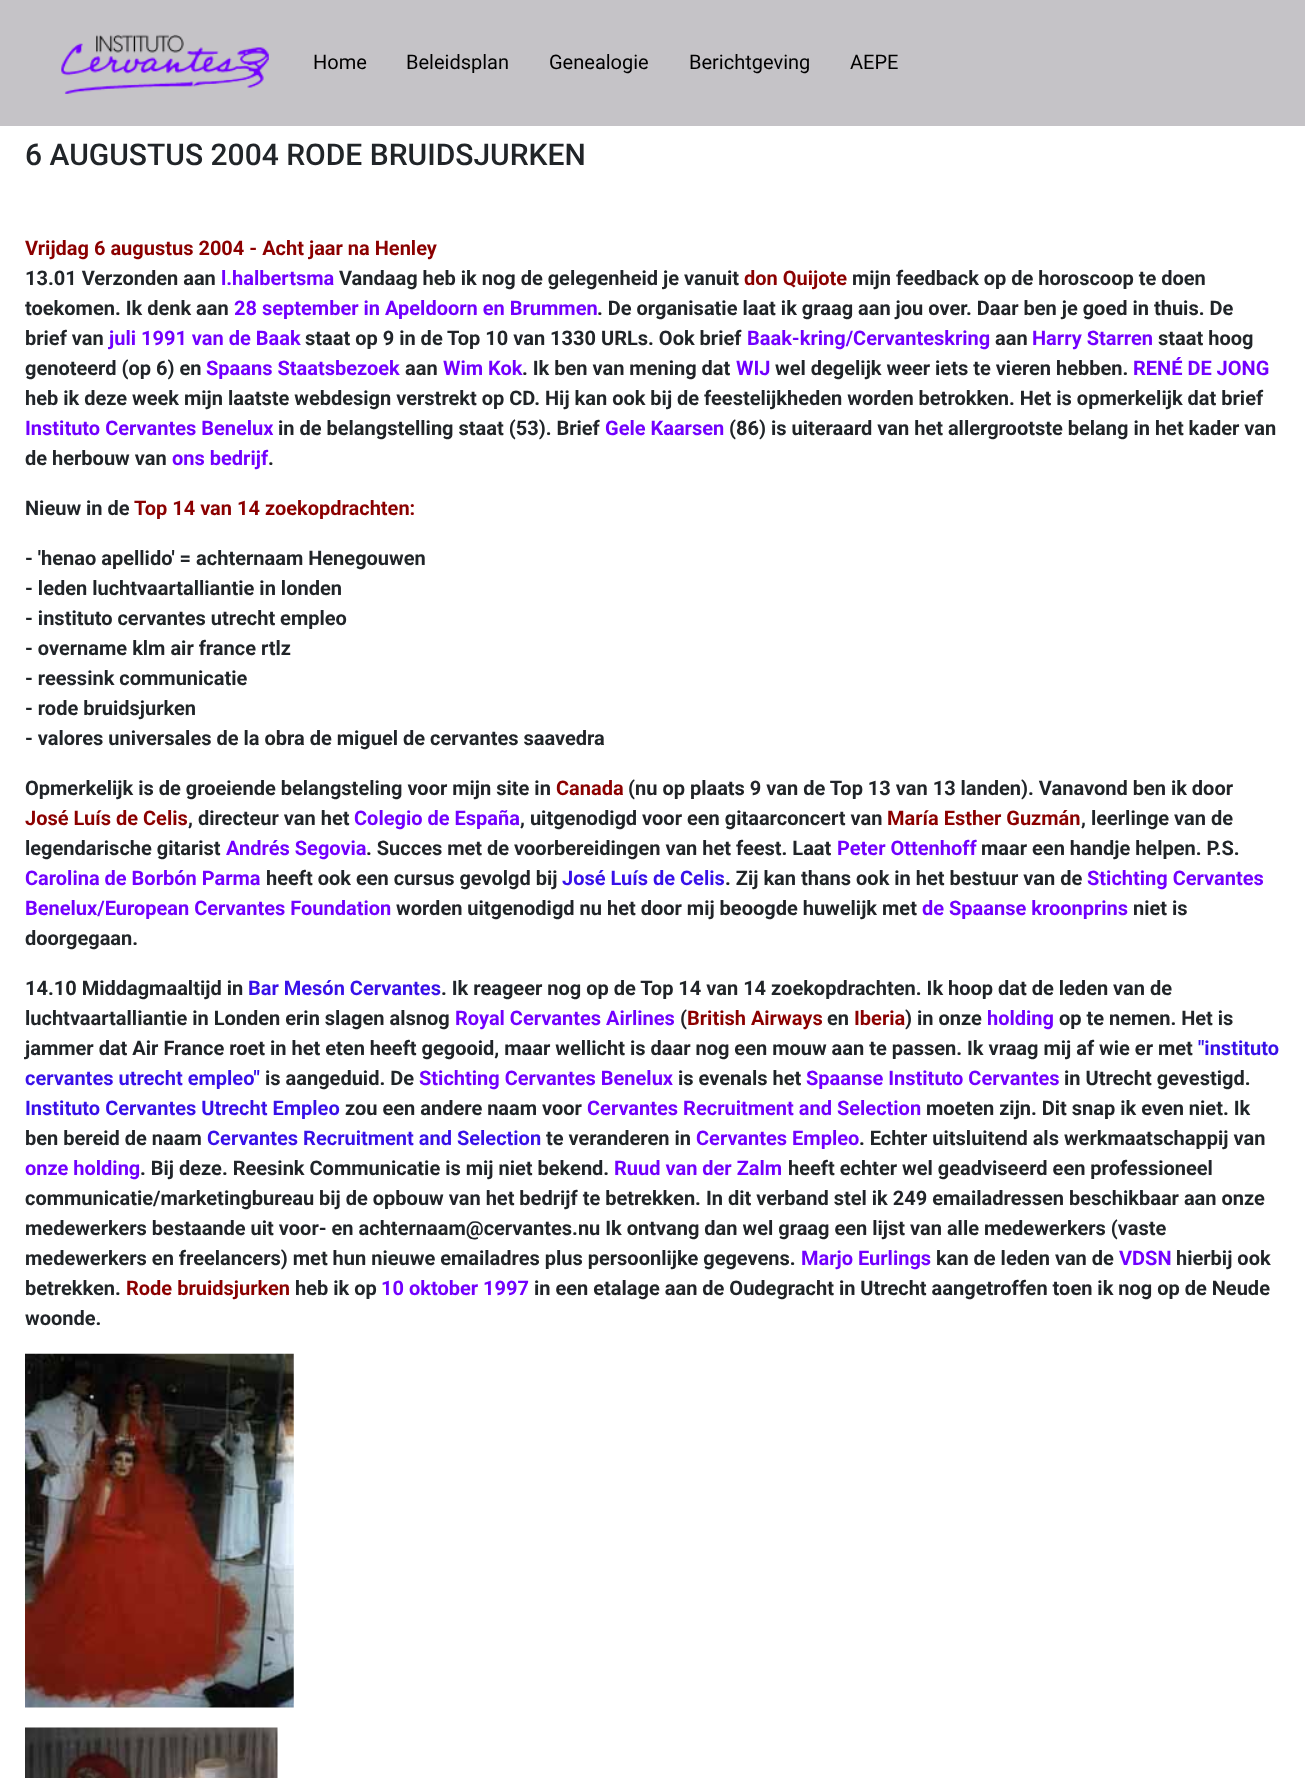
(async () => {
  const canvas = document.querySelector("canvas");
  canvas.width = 1305;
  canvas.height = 1778;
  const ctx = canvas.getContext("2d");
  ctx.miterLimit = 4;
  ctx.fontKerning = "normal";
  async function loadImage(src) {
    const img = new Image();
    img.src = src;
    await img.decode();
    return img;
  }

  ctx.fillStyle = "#ffffff";
  ctx.fillRect(0, 0, 1305, 1778);
  ctx.fillStyle = "#c5c3c7";
  ctx.fillRect(0, 0, 1305, 126);
  ctx.drawImage(await loadImage("img/1.png"), 61, 34, 208, 60);
  ctx.drawImage(await loadImage("img/2.png"), 25, 1353, 269, 355);
  ctx.drawImage(await loadImage("img/3.png"), 25, 1727, 253, 51);
  ctx.font = "20px Roboto";
  ctx.fillStyle = "#000000";
  for (const [text, x, y] of [
    ["Home", 313, 69],
    ["Beleidsplan", 406, 69],
    ["Genealogie", 549, 69],
    ["Berichtgeving", 689, 69],
    ["AEPE", 850, 69],
  ]) {
    ctx.fillText(text, x, y);
  }
  ctx.font = "500 30px Roboto";
  ctx.fillStyle = "#212529";
  ctx.fillText("6 AUGUSTUS 2004 RODE BRUIDSJURKEN", 25, 165);
  ctx.font = "bold 20px Roboto";
  ctx.fillStyle = "#8b0000";
  ctx.fillText("Vrijdag 6 augustus 2004 - Acht jaar na Henley", 25, 255);
  ctx.fillStyle = "#212529";
  ctx.fillText("13.01 Verzonden aan", 25, 285);
  ctx.fillStyle = "#7200ff";
  ctx.fillText("l.halbertsma", 221, 285);
  ctx.fillStyle = "#212529";
  ctx.fillText("Vandaag heb ik nog de gelegenheid je vanuit", 339, 285);
  ctx.fillStyle = "#8b0000";
  ctx.fillText("don Quijote", 744, 285);
  ctx.fillStyle = "#212529";
  ctx.fillText("mijn feedback op de horoscoop te doen", 852, 285);
  ctx.fillText("toekomen. Ik denk aan", 25, 315);
  ctx.fillStyle = "#7200ff";
  ctx.fillText("28 september in Apeldoorn en Brummen", 234, 315);
  ctx.fillStyle = "#212529";
  ctx.fillText(". De organisatie laat ik graag aan jou over. Daar ben je goed in thuis. De", 597, 315);
  ctx.fillText("brief van", 25, 345);
  ctx.fillStyle = "#7200ff";
  ctx.fillText("juli 1991 van de Baak", 109, 345);
  ctx.fillStyle = "#212529";
  ctx.fillText("staat op 9 in de Top 10 van 1330 URLs. Ook brief", 305, 345);
  ctx.fillStyle = "#7200ff";
  ctx.fillText("Baak-kring/Cervanteskring", 747, 345);
  ctx.fillStyle = "#212529";
  ctx.fillText("aan", 995, 345);
  ctx.fillStyle = "#7200ff";
  ctx.fillText("Harry Starren", 1032, 345);
  ctx.fillStyle = "#212529";
  ctx.fillText("staat hoog", 1158, 345);
  ctx.fillText("genoteerd (op 6) en", 25, 375);
  ctx.fillStyle = "#7200ff";
  ctx.fillText("Spaans Staatsbezoek", 206, 375);
  ctx.fillStyle = "#212529";
  ctx.fillText("aan", 405, 375);
  ctx.fillStyle = "#7200ff";
  ctx.fillText("Wim Kok", 443, 375);
  ctx.fillStyle = "#212529";
  ctx.fillText(". Ik ben van mening dat", 522, 375);
  ctx.fillStyle = "#7200ff";
  ctx.fillText("WIJ", 736, 375);
  ctx.fillStyle = "#212529";
  ctx.fillText("wel degelijk weer iets te vieren hebben.", 775, 375);
  ctx.fillStyle = "#7200ff";
  ctx.fillText("RENÉ DE JONG", 1133, 375);
  ctx.fillStyle = "#212529";
  ctx.fillText("heb ik deze week mijn laatste webdesign verstrekt op CD. Hij kan ook bij de feestelijkheden worden betrokken. Het is opmerkelijk dat brief", 25, 405);
  ctx.fillStyle = "#7200ff";
  ctx.fillText("Instituto Cervantes Benelux", 25, 435);
  ctx.fillStyle = "#212529";
  ctx.fillText("in de belangstelling staat (53). Brief", 278, 435);
  ctx.fillStyle = "#7200ff";
  ctx.fillText("Gele Kaarsen", 605, 435);
  ctx.fillStyle = "#212529";
  ctx.fillText("(86) is uiteraard van het allergrootste belang in het kader van", 729, 435);
  ctx.fillText("de herbouw van", 25, 465);
  ctx.fillStyle = "#7200ff";
  ctx.fillText("ons bedrijf", 172, 465);
  ctx.fillStyle = "#212529";
  ctx.fillText(".", 268, 465);
  ctx.fillText("Nieuw in de", 25, 515);
  ctx.fillStyle = "#8b0000";
  ctx.fillText("Top 14 van 14 zoekopdrachten:", 134, 515);
  ctx.fillStyle = "#212529";
  for (const [text, x, y] of [
    ["- 'henao apellido' = achternaam Henegouwen", 25, 565],
    ["- leden luchtvaartalliantie in londen", 25, 595],
    ["- instituto cervantes utrecht empleo", 25, 625],
    ["- overname klm air france rtlz", 25, 655],
    ["- reessink communicatie", 25, 685],
    ["- rode bruidsjurken", 25, 715],
    ["- valores universales de la obra de miguel de cervantes saavedra", 25, 745],
    ["Opmerkelijk is de groeiende belangsteling voor mijn site in", 25, 795],
  ]) {
    ctx.fillText(text, x, y);
  }
  ctx.fillStyle = "#8b0000";
  ctx.fillText("Canada", 556, 795);
  ctx.fillStyle = "#212529";
  ctx.fillText("(nu op plaats 9 van de Top 13 van 13 landen). Vanavond ben ik door", 628, 795);
  ctx.fillStyle = "#8b0000";
  ctx.fillText("José Luís de Celis", 25, 825);
  ctx.fillStyle = "#212529";
  ctx.fillText(", directeur van het", 188, 825);
  ctx.fillStyle = "#7200ff";
  ctx.fillText("Colegio de España", 354, 825);
  ctx.fillStyle = "#212529";
  ctx.fillText(", uitgenodigd voor een gitaarconcert van", 520, 825);
  ctx.fillStyle = "#8b0000";
  ctx.fillText("María Esther Guzmán", 887, 825);
  ctx.fillStyle = "#212529";
  ctx.fillText(", leerlinge van de", 1081, 825);
  ctx.fillText("legendarische gitarist", 25, 855);
  ctx.fillStyle = "#7200ff";
  ctx.fillText("Andrés Segovia", 226, 855);
  ctx.fillStyle = "#212529";
  ctx.fillText(". Succes met de voorbereidingen van het feest. Laat", 366, 855);
  ctx.fillStyle = "#7200ff";
  ctx.fillText("Peter Ottenhoff", 837, 855);
  ctx.fillStyle = "#212529";
  ctx.fillText("maar een handje helpen. P.S.", 981, 855);
  ctx.fillStyle = "#7200ff";
  ctx.fillText("Carolina de Borbón Parma", 25, 885);
  ctx.fillStyle = "#212529";
  ctx.fillText("heeft ook een cursus gevolgd bij", 266, 885);
  ctx.fillStyle = "#3810e9";
  ctx.fillText("José Luís de Celis", 562, 885);
  ctx.fillStyle = "#212529";
  ctx.fillText(". Zij kan thans ook in het bestuur van de", 725, 885);
  ctx.fillStyle = "#7200ff";
  ctx.fillText("Stichting Cervantes", 1087, 885);
  ctx.fillText("Benelux/European Cervantes Foundation", 25, 915);
  ctx.fillStyle = "#212529";
  ctx.fillText("worden uitgenodigd nu het door mij beoogde huwelijk met", 396, 915);
  ctx.fillStyle = "#7200ff";
  ctx.fillText("de Spaanse kroonprins", 922, 915);
  ctx.fillStyle = "#212529";
  for (const [text, x, y] of [
    ["niet is", 1133, 915],
    ["doorgegaan.", 25, 945],
    ["14.10 Middagmaaltijd in", 25, 995],
  ]) {
    ctx.fillText(text, x, y);
  }
  ctx.fillStyle = "#3810e9";
  ctx.fillText("Bar Mesón Cervantes", 248, 995);
  ctx.fillStyle = "#212529";
  ctx.fillText(". Ik reageer nog op de Top 14 van 14 zoekopdrachten. Ik hoop dat de leden van de", 441, 995);
  ctx.fillText("luchtvaartalliantie in Londen erin slagen alsnog", 25, 1025);
  ctx.fillStyle = "#7200ff";
  ctx.fillText("Royal Cervantes Airlines", 455, 1025);
  ctx.fillStyle = "#212529";
  ctx.fillText("(", 680, 1025);
  ctx.fillStyle = "#8b0000";
  ctx.fillText("British Airways", 687, 1025);
  ctx.fillStyle = "#212529";
  ctx.fillText("en", 827, 1025);
  ctx.fillStyle = "#8b0000";
  ctx.fillText("Iberia", 854, 1025);
  ctx.fillStyle = "#212529";
  ctx.fillText(") in onze", 905, 1025);
  ctx.fillStyle = "#7200ff";
  ctx.fillText("holding", 987, 1025);
  ctx.fillStyle = "#212529";
  ctx.fillText("op te nemen. Het is", 1059, 1025);
  ctx.fillText("jammer dat Air France roet in het eten heeft gegooid, maar wellicht is daar nog een mouw aan te passen. Ik vraag mij af wie er met", 25, 1055);
  ctx.fillStyle = "#3810e9";
  ctx.fillText("\"instituto", 1198, 1055);
  ctx.fillText("cervantes utrecht empleo\"", 25, 1085);
  ctx.fillStyle = "#212529";
  ctx.fillText("is aangeduid. De", 265, 1085);
  ctx.fillStyle = "#7200ff";
  ctx.fillText("Stichting Cervantes Benelux", 419, 1085);
  ctx.fillStyle = "#212529";
  ctx.fillText("is evenals het", 678, 1085);
  ctx.fillStyle = "#7200ff";
  ctx.fillText("Spaanse Instituto Cervantes", 806, 1085);
  ctx.fillStyle = "#212529";
  ctx.fillText("in Utrecht gevestigd.", 1064, 1085);
  ctx.fillStyle = "#3810e9";
  ctx.fillText("Instituto Cervantes Utrecht Empleo", 25, 1115);
  ctx.fillStyle = "#212529";
  ctx.fillText("zou een andere naam voor", 345, 1115);
  ctx.fillStyle = "#7200ff";
  ctx.fillText("Cervantes Recruitment and Selection", 587, 1115);
  ctx.fillStyle = "#212529";
  ctx.fillText("moeten zijn. Dit snap ik even niet. Ik", 926, 1115);
  ctx.fillText("ben bereid de naam", 25, 1145);
  ctx.fillStyle = "#3810e9";
  ctx.fillText("Cervantes Recruitment and Selection", 207, 1145);
  ctx.fillStyle = "#212529";
  ctx.fillText("te veranderen in", 546, 1145);
  ctx.fillStyle = "#7200ff";
  ctx.fillText("Cervantes Empleo", 696, 1145);
  ctx.fillStyle = "#212529";
  ctx.fillText(". Echter uitsluitend als werkmaatschappij van", 859, 1145);
  ctx.fillStyle = "#7200ff";
  ctx.fillText("onze holding", 25, 1175);
  ctx.fillStyle = "#212529";
  ctx.fillText(". Bij deze. Reesink Communicatie is mij niet bekend.", 140, 1175);
  ctx.fillStyle = "#7200ff";
  ctx.fillText("Ruud van der Zalm", 614, 1175);
  ctx.fillStyle = "#212529";
  for (const [text, x, y] of [
    ["heeft echter wel geadviseerd een professioneel", 788, 1175],
    ["communicatie/marketingbureau bij de opbouw van het bedrijf te betrekken. In dit verband stel ik 249 emailadressen beschikbaar aan onze", 25, 1205],
    ["medewerkers bestaande uit voor- en achternaam@cervantes.nu Ik ontvang dan wel graag een lijst van alle medewerkers (vaste", 25, 1235],
    ["medewerkers en freelancers) met hun nieuwe emailadres plus persoonlijke gegevens.", 25, 1265],
  ]) {
    ctx.fillText(text, x, y);
  }
  ctx.fillStyle = "#7200ff";
  ctx.fillText("Marjo Eurlings", 801, 1265);
  ctx.fillStyle = "#212529";
  ctx.fillText("kan de leden van de", 936, 1265);
  ctx.fillStyle = "#7200ff";
  ctx.fillText("VDSN", 1119, 1265);
  ctx.fillStyle = "#212529";
  ctx.fillText("hierbij ook", 1176, 1265);
  ctx.fillText("betrekken.", 25, 1295);
  ctx.fillStyle = "#8b0000";
  ctx.fillText("Rode bruidsjurken", 126, 1295);
  ctx.fillStyle = "#212529";
  ctx.fillText("heb ik op", 295, 1295);
  ctx.fillStyle = "#7200ff";
  ctx.fillText("10 oktober 1997", 381, 1295);
  ctx.fillStyle = "#212529";
  ctx.fillText("in een etalage aan de Oudegracht in Utrecht aangetroffen toen ik nog op de Neude", 534, 1295);
  ctx.fillText("woonde.", 25, 1325);
})();
